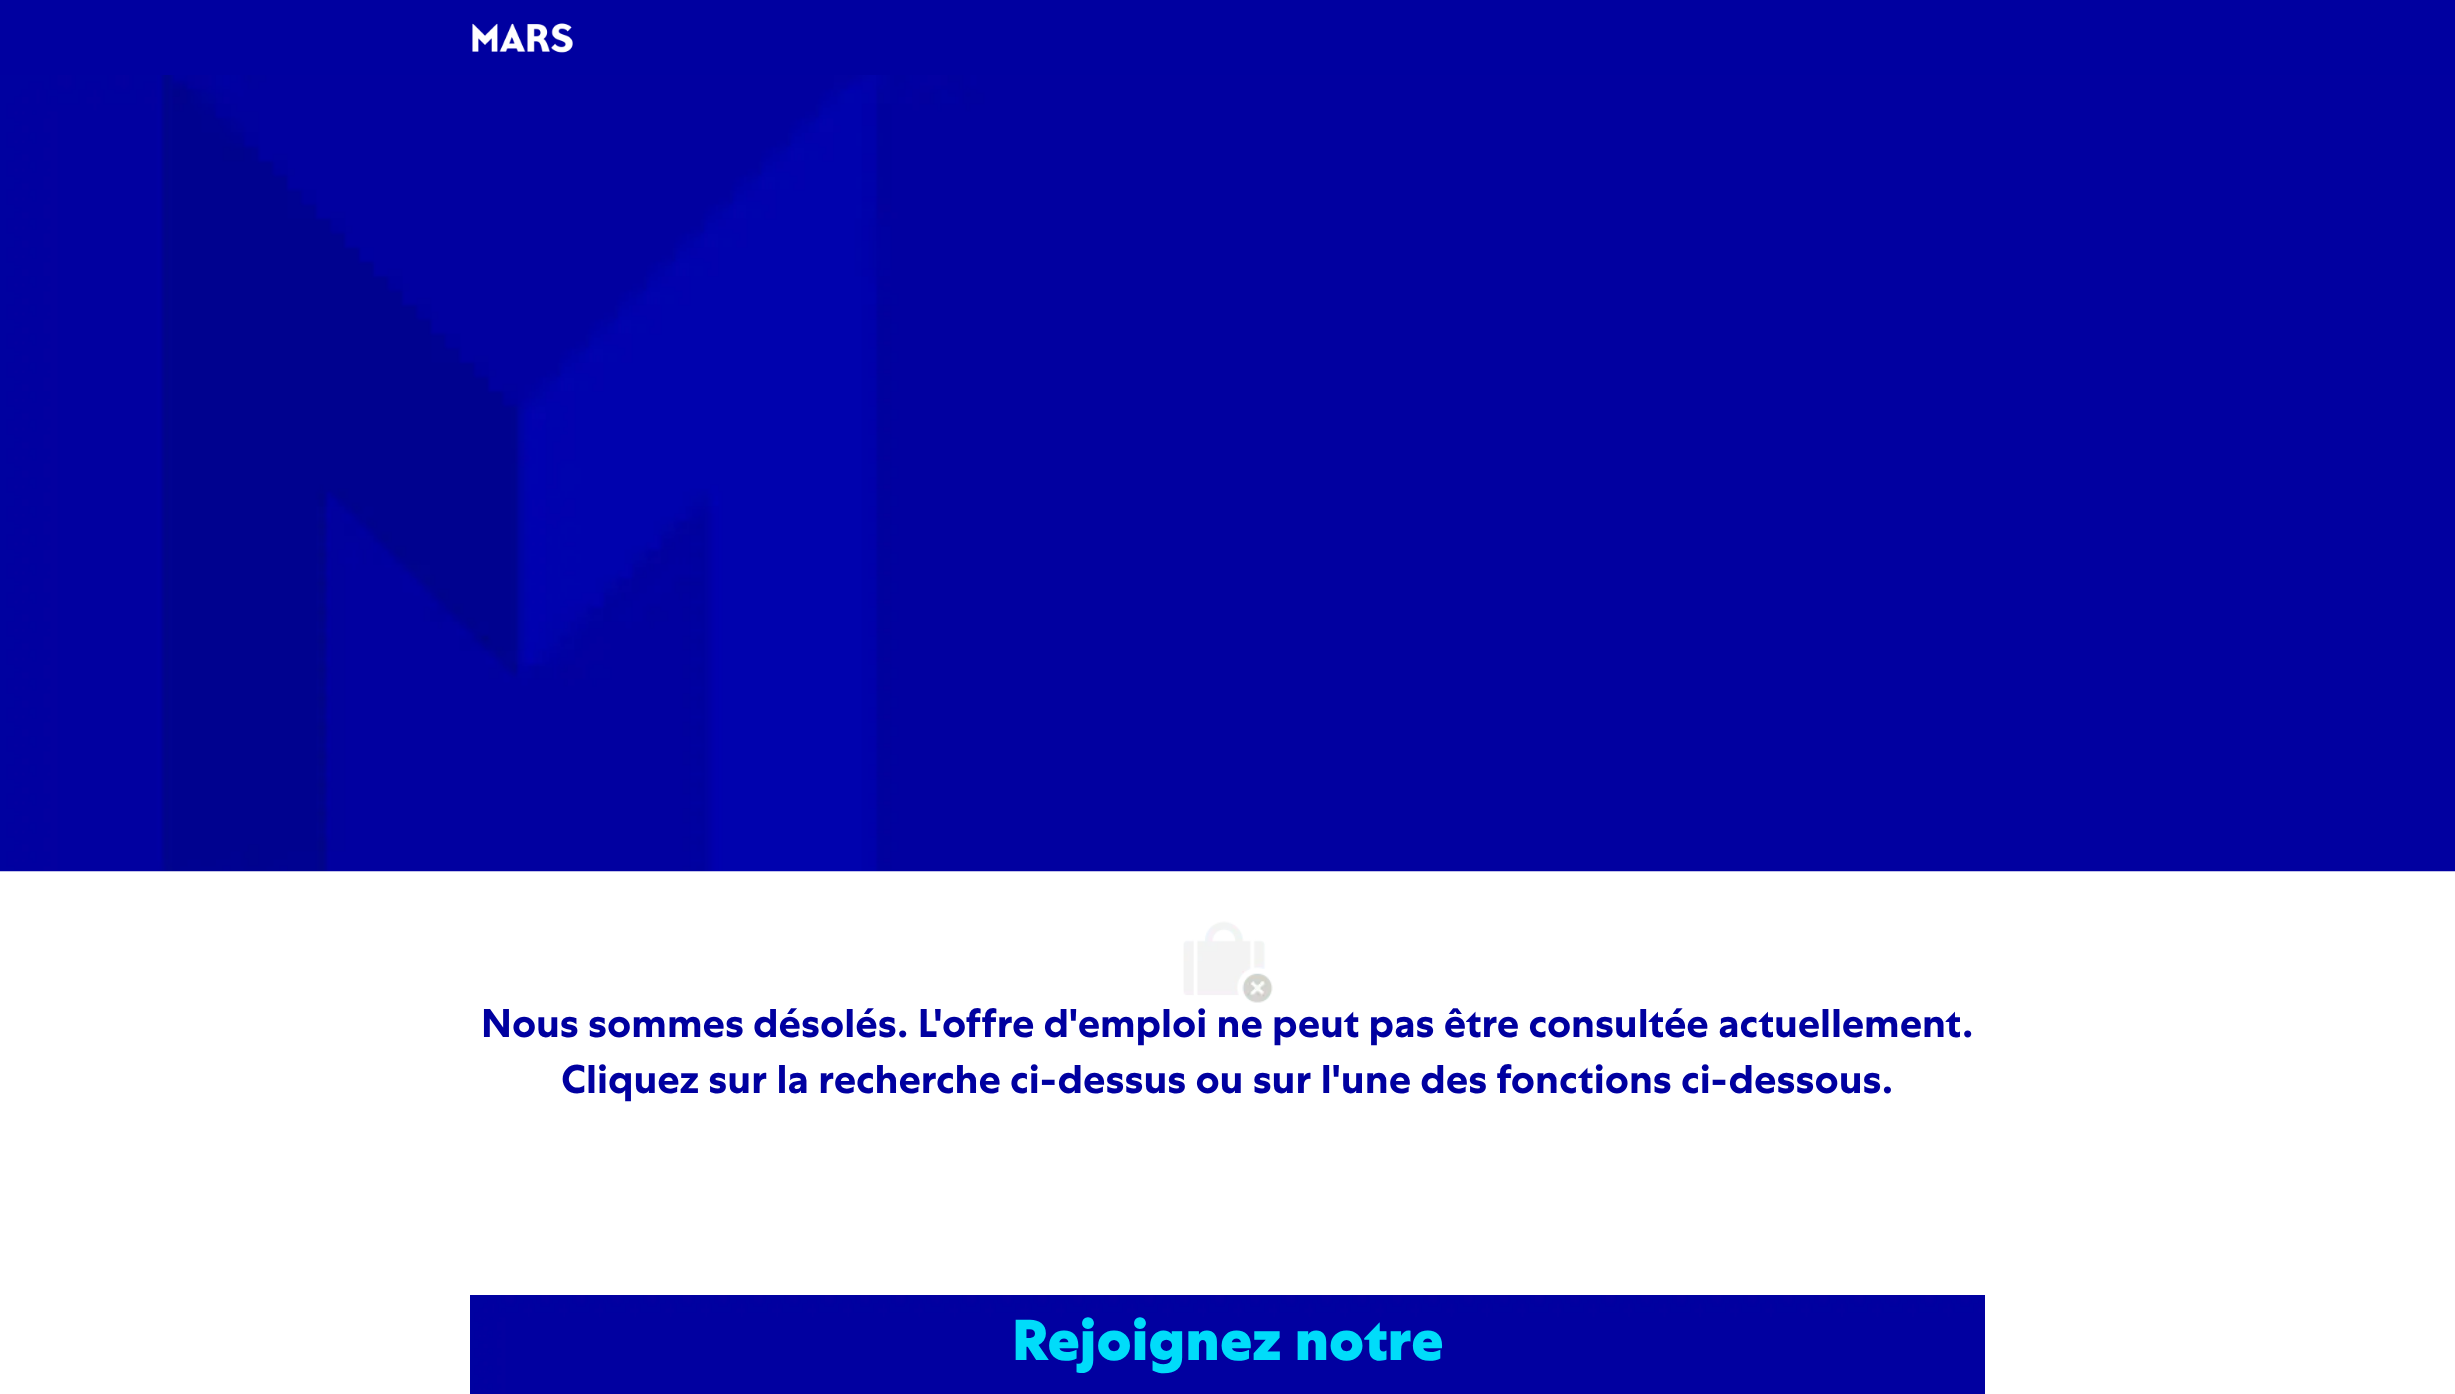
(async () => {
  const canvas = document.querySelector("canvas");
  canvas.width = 2455;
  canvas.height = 1394;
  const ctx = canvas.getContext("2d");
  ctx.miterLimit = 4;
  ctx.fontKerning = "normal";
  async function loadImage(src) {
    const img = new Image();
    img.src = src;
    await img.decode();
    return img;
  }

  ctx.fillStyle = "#ffffff";
  ctx.fillRect(0, 0, 2455, 1394);
  ctx.fillStyle = "#0000a0";
  ctx.fillRect(0, 0, 2455, 75);
  ctx.drawImage(await loadImage("img/1.png"), 472, 23, 101, 30);
  ctx.drawImage(await loadImage("img/2.png"), 0, 75, 2455, 797);
  ctx.drawImage(await loadImage("img/3.png"), 1183, 921, 90, 82);
  ctx.drawImage(await loadImage("img/4.png"), 470, 1295, 1515, 99);
  ctx.font = "bold 40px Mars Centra";
  ctx.fillText("Nous sommes désolés. L'offre d'emploi ne peut pas être consultée actuellement.", 481, 1037);
  ctx.fillText("Cliquez sur la recherche ci-dessus ou sur l'une des fonctions ci-dessous.", 561, 1093);
  ctx.font = "800 57.5px Mars Centra";
  ctx.fillStyle = "#00dcfa";
  ctx.fillText("Rejoignez notre", 1012, 1360);
})();
